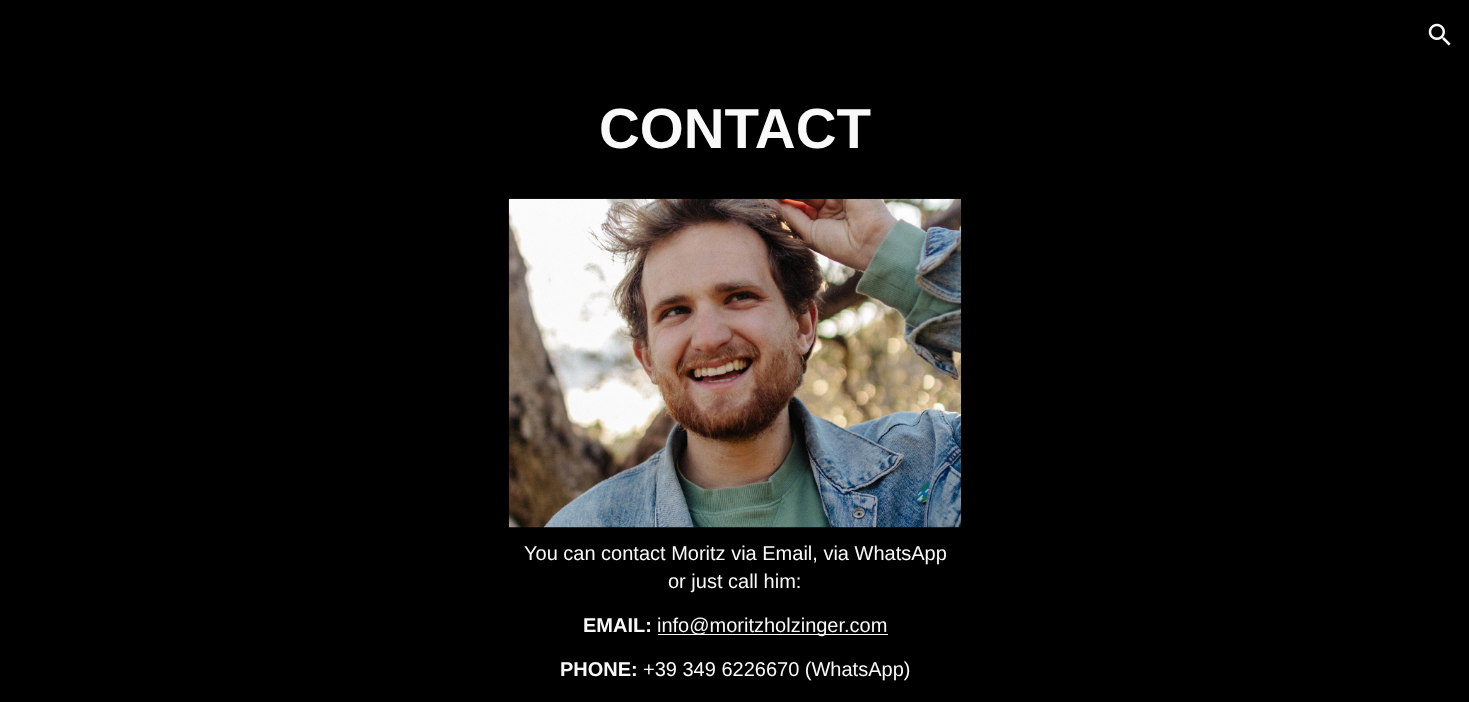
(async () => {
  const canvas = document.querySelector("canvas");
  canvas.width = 1469;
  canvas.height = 702;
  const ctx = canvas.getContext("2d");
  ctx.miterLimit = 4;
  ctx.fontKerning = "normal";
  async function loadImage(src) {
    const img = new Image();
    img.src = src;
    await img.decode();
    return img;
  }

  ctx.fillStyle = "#000000";
  ctx.fillRect(0, 0, 1469, 702);
  ctx.drawImage(await loadImage("img/1.png"), 1428, 23, 23, 23);
  ctx.drawImage(await loadImage("img/2.png"), 508, 198, 454, 330);
  ctx.fillStyle = "#f9f9f9";
  ctx.fillRect(658, 634, 230, 1);
  ctx.font = "bold 56.5px Liberation Sans";
  ctx.fillText("CONTACT", 599, 148);
  ctx.font = "20px Liberation Sans";
  ctx.fillText("You can contact Moritz via Email, via WhatsApp", 524, 560);
  ctx.fillText("or just call him:", 668, 588);
  ctx.font = "bold 20px Liberation Sans";
  ctx.fillText("EMAIL:", 583, 632);
  ctx.font = "20px Liberation Sans";
  ctx.fillText("info@moritzholzinger.com", 657, 632);
  ctx.font = "bold 20px Liberation Sans";
  ctx.fillText("PHONE:", 560, 676);
  ctx.font = "20px Liberation Sans";
  ctx.fillText("+39 349 6226670 (WhatsApp)", 643, 676);
})();
